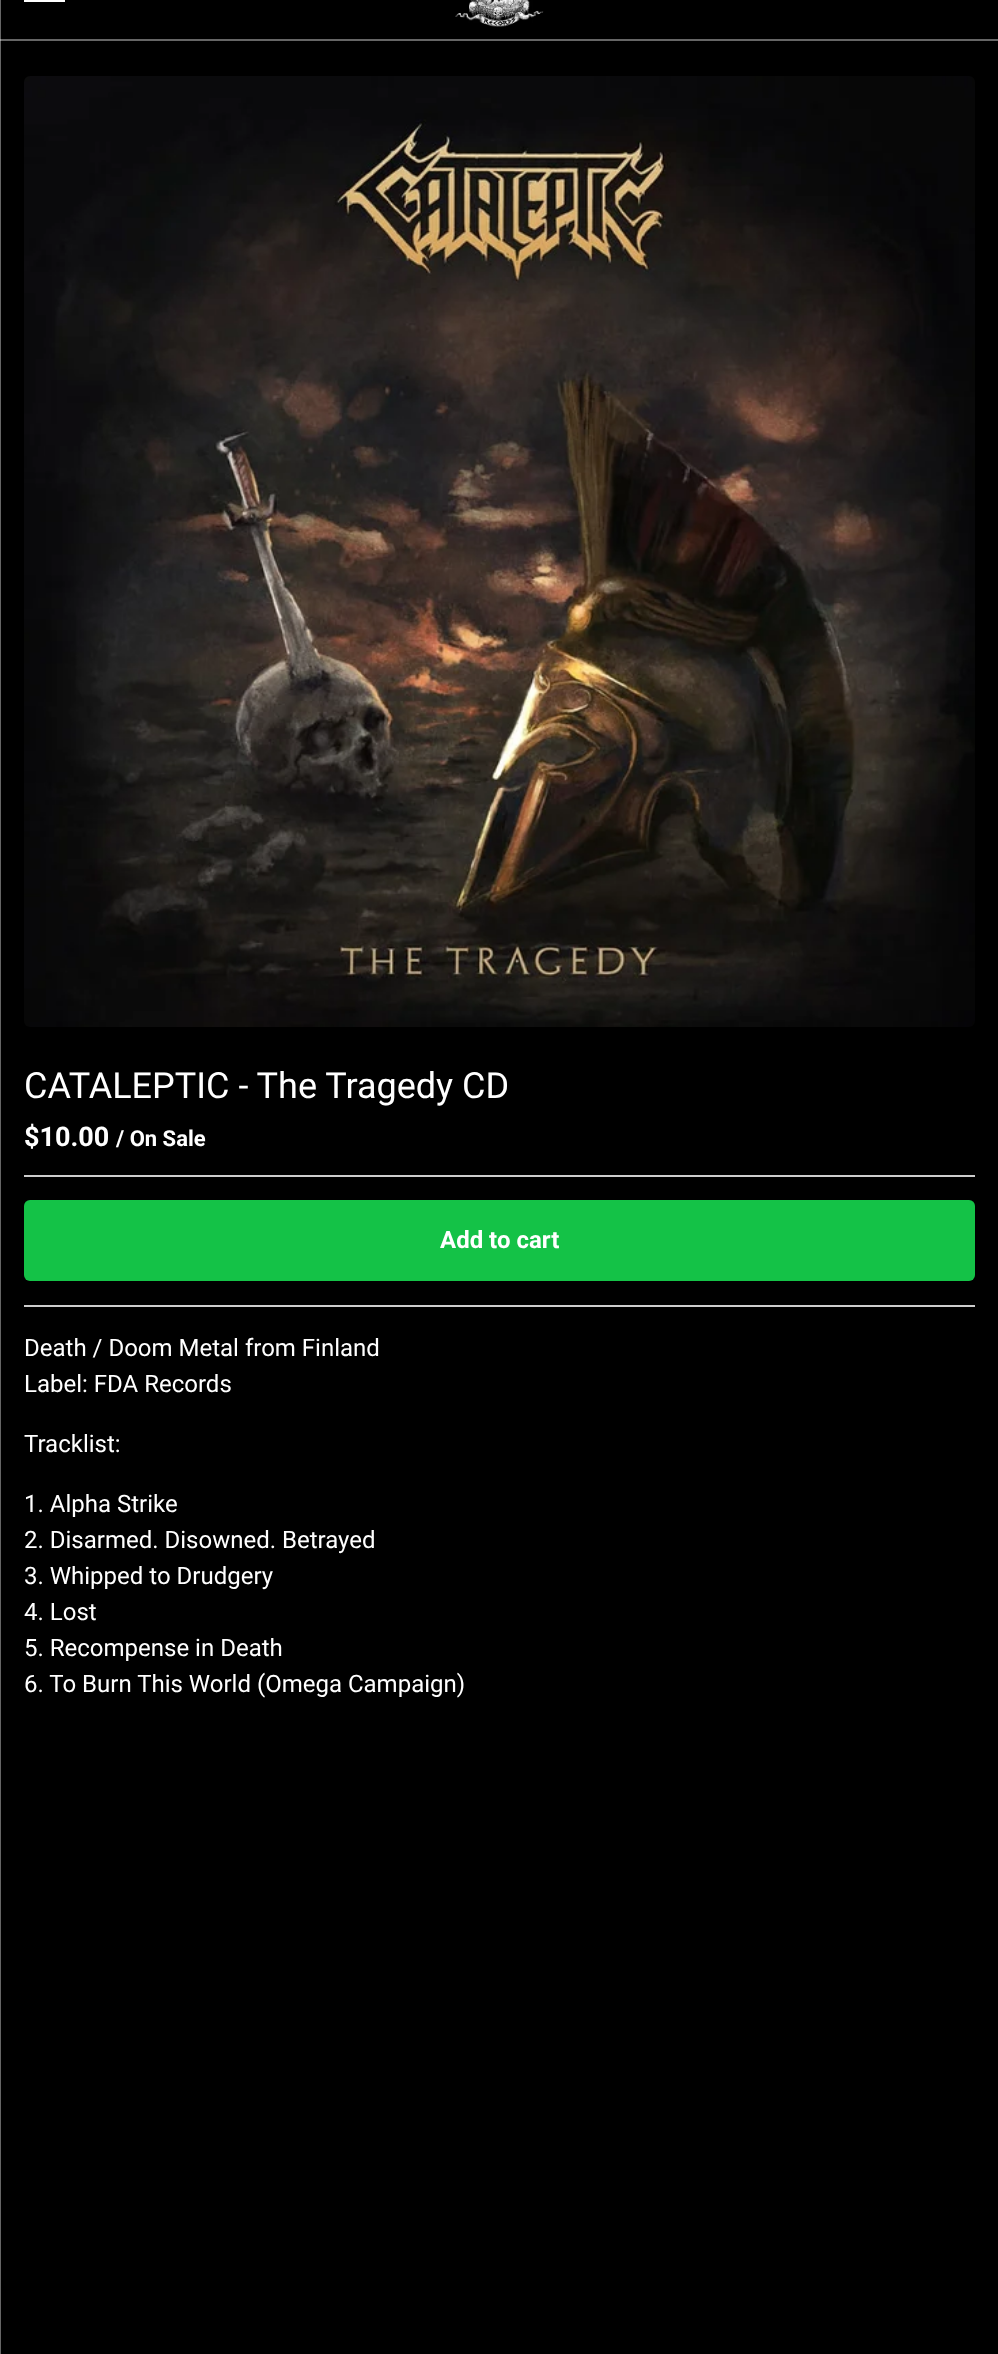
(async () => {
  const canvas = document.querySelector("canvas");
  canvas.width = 998;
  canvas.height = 2354;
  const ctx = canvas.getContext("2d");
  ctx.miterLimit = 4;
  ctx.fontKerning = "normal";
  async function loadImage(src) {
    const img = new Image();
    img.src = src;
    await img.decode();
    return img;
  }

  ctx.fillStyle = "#000000";
  ctx.fillRect(0, 0, 998, 2354);
  for (const [x, y, w, h, color] of [
    [0, 0, 1, 2354, "#666666"],
    [0, 39, 998, 2, "#666666"],
    [0, 39, 1, 2, "#a3a3a3"],
    [24, 0, 41, 2, "#ffffff"],
  ]) {
    ctx.fillStyle = color;
    ctx.fillRect(x, y, w, h);
  }
  ctx.drawImage(await loadImage("img/1.png"), 455, 0, 89, 27);
  ctx.drawImage(await loadImage("img/2.png"), 24, 76, 951, 951);
  ctx.fillStyle = "#cccccc";
  ctx.fillRect(24, 1175, 951, 2);
  ctx.fillRect(24, 1305, 951, 2);
  ctx.fillStyle = "#14c247";
  ctx.beginPath();
  ctx.roundRect(24, 1200, 951, 81, 6);
  ctx.fill();
  ctx.font = "36px Roboto";
  ctx.fillStyle = "#ffffff";
  ctx.fillText("CATALEPTIC - The Tragedy CD", 24, 1098);
  ctx.font = "bold 27px Roboto";
  ctx.fillText("$10.00", 24, 1146);
  ctx.font = "bold 22px Roboto";
  ctx.fillText("/ On Sale", 116, 1146);
  ctx.font = "bold 24px Roboto";
  ctx.fillText("Add to cart", 440, 1248);
  ctx.font = "24px Roboto";
  for (const [text, x, y] of [
    ["Death / Doom Metal from Finland", 24, 1356],
    ["Label: FDA Records", 24, 1392],
    ["Tracklist:", 24, 1452],
    ["1. Alpha Strike", 24, 1512],
    ["2. Disarmed. Disowned. Betrayed", 24, 1548],
    ["3. Whipped to Drudgery", 24, 1584],
    ["4. Lost", 24, 1620],
    ["5. Recompense in Death", 24, 1656],
    ["6. To Burn This World (Omega Campaign)", 24, 1692],
  ]) {
    ctx.fillText(text, x, y);
  }
})();
